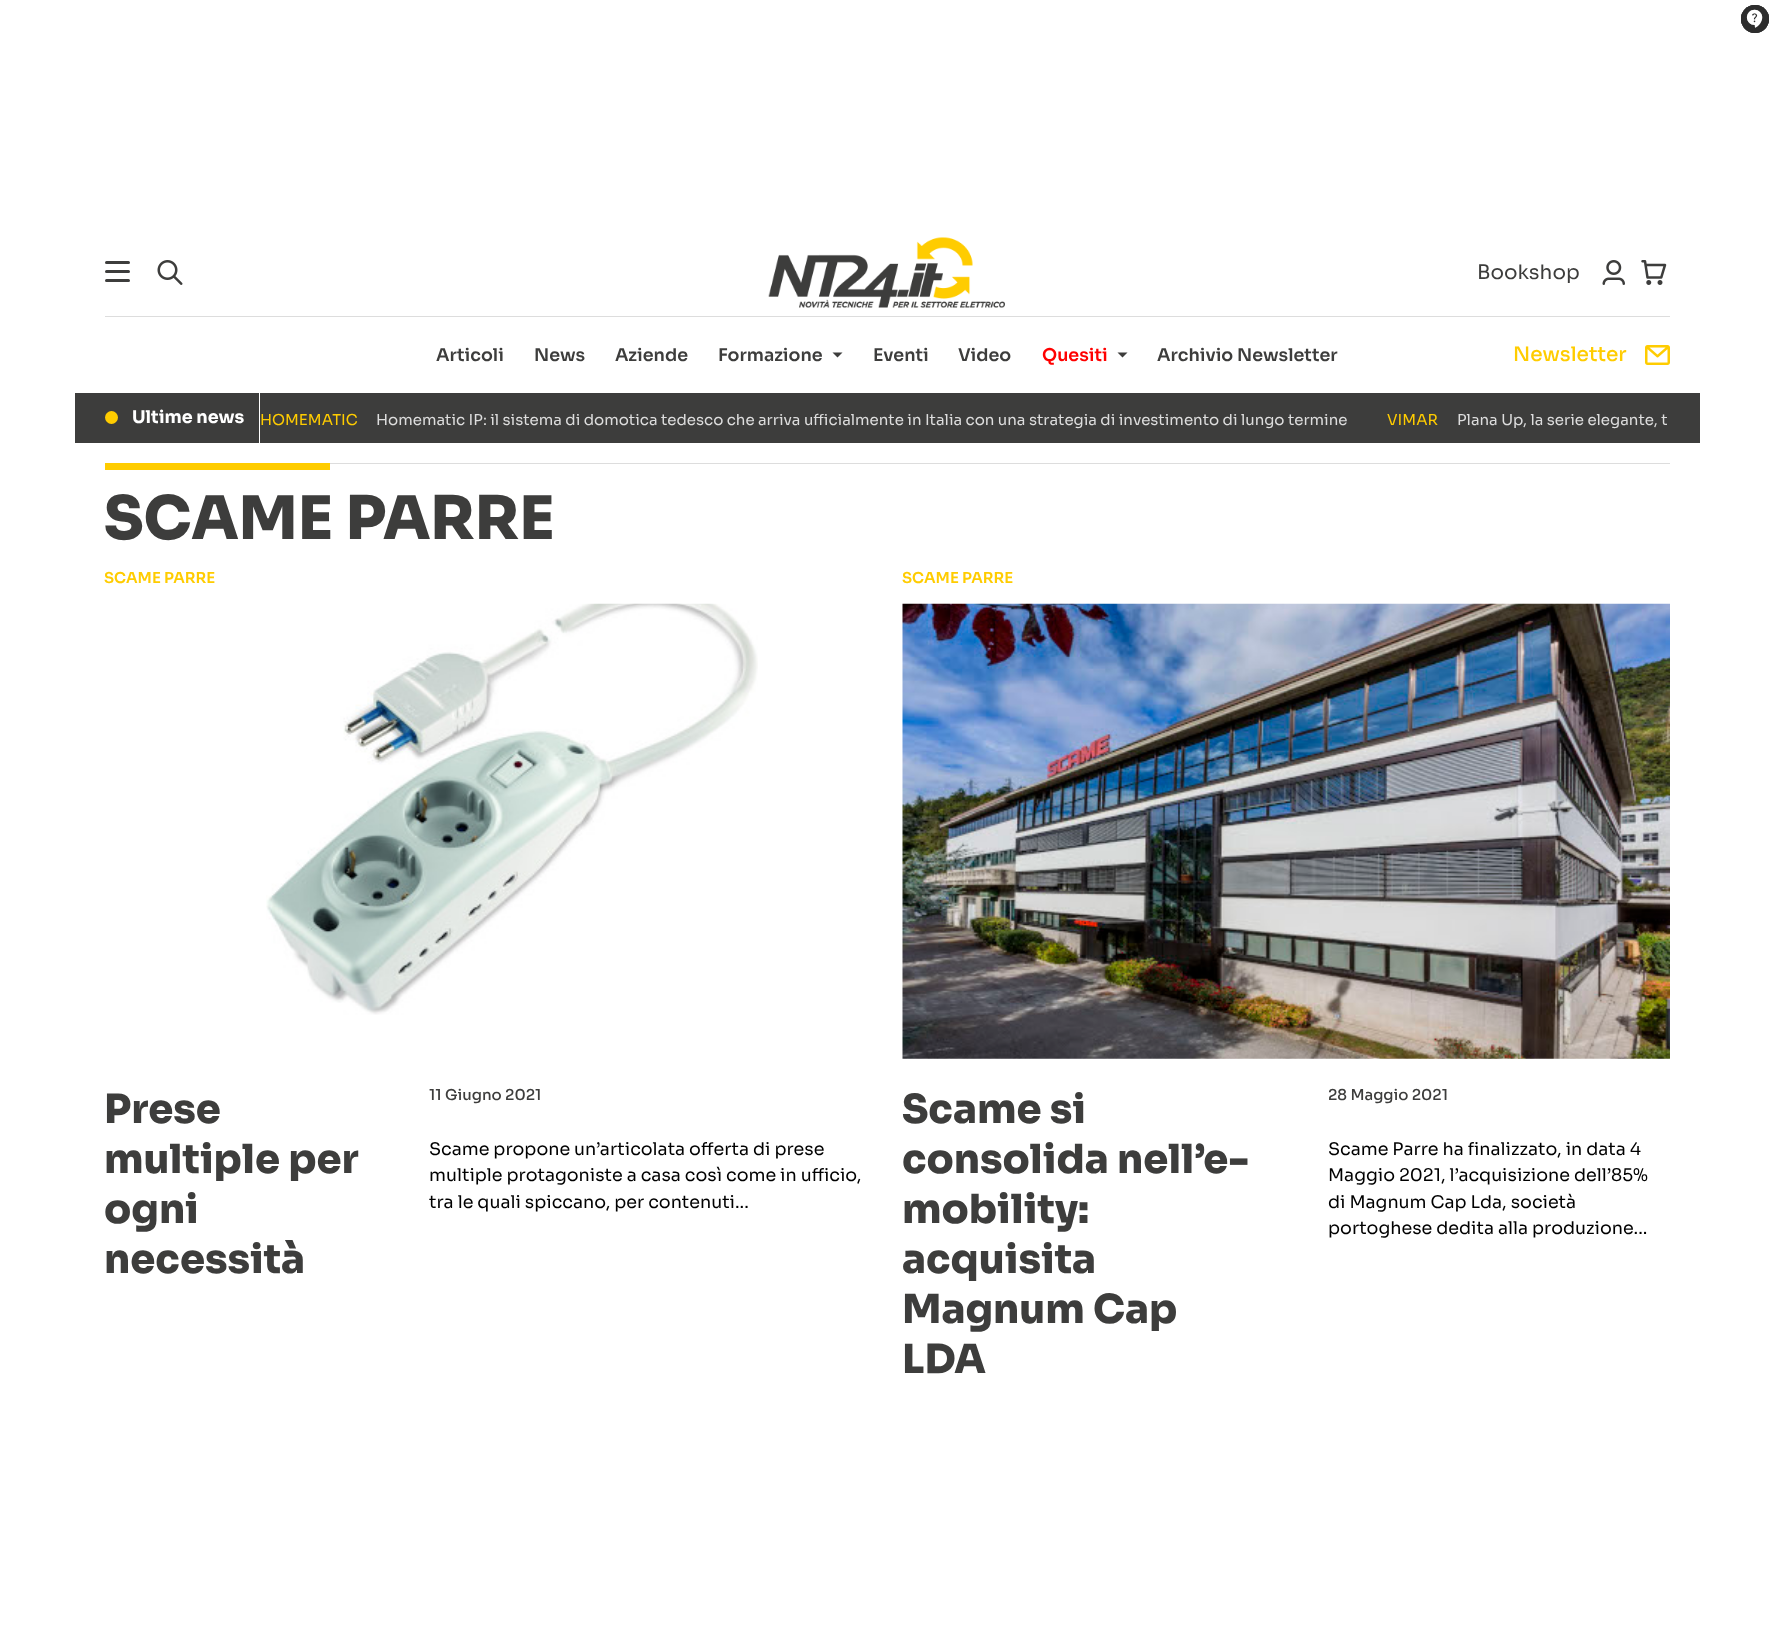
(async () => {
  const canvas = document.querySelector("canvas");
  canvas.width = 1773;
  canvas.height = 1636;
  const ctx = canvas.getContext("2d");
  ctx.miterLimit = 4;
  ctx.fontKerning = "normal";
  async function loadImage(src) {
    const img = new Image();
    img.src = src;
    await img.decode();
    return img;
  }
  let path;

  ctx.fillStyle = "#ffffff";
  ctx.fillRect(0, 0, 1773, 1636);
  ctx.fillStyle = "#818181";
  ctx.beginPath();
  ctx.arc(1755, 19, 14, 0, Math.PI * 2);
  ctx.fill();
  ctx.drawImage(await loadImage("img/1.png"), 1746, 9, 17, 19);
  ctx.fillStyle = "rgba(45, 45, 45, 0.6)";
  ctx.beginPath();
  ctx.arc(1755, 19, 14, 0, Math.PI * 2);
  ctx.fill();
  ctx.drawImage(await loadImage("img/2.png"), 1746, 9, 17, 19);
  ctx.beginPath();
  ctx.arc(1755, 19, 14, 0, Math.PI * 2);
  ctx.fill();
  ctx.drawImage(await loadImage("img/3.png"), 1746, 9, 17, 19);
  ctx.beginPath();
  ctx.arc(1755, 19, 14, 0, Math.PI * 2);
  ctx.fill();
  ctx.drawImage(await loadImage("img/4.png"), 1746, 9, 17, 19);
  ctx.beginPath();
  ctx.arc(1755, 19, 14, 0, Math.PI * 2);
  ctx.fill();
  ctx.drawImage(await loadImage("img/5.png"), 1746, 9, 17, 19);
  ctx.beginPath();
  ctx.arc(1755, 19, 14, 0, Math.PI * 2);
  ctx.fill();
  ctx.drawImage(await loadImage("img/6.png"), 1746, 9, 17, 19);
  ctx.fillStyle = "#3d3d3c";
  ctx.beginPath();
  ctx.roundRect(105, 279, 25, 3, 1.5);
  ctx.fill();
  ctx.beginPath();
  ctx.roundRect(105, 261, 25, 3, 1.5);
  ctx.fill();
  ctx.beginPath();
  ctx.roundRect(105, 270, 25, 3, 1.5);
  ctx.fill();
  ctx.drawImage(await loadImage("img/7.png"), 157, 260, 26, 25);
  ctx.drawImage(await loadImage("img/8.png"), 768, 237, 237, 71);
  ctx.drawImage(await loadImage("img/9.png"), 1602, 260, 23, 25);
  ctx.drawImage(await loadImage("img/10.png"), 1641, 260, 26, 25);
  ctx.fillStyle = "#dddddd";
  ctx.fillRect(105, 316, 1565, 1);
  ctx.fillStyle = "#3d3d3c";
  path = new Path2D("M832.5 352.5H842.5L837.5 357.5Z");
  ctx.fill(path);
  path = new Path2D("M1117.5 352.5H1127.5L1122.5 357.5Z");
  ctx.fill(path);
  ctx.drawImage(await loadImage("img/11.png"), 1645, 345, 25, 20);
  ctx.fillRect(75, 393, 1625, 50);
  ctx.fillStyle = "#ffffff";
  ctx.fillRect(259, 393, 1, 50);
  ctx.fillStyle = "#ffcc00";
  ctx.beginPath();
  ctx.arc(111.5, 417.5, 6.5, 0, Math.PI * 2);
  ctx.fill();
  ctx.fillStyle = "#dddddd";
  ctx.fillRect(330, 463, 1340, 1);
  ctx.fillStyle = "#ffcc00";
  ctx.fillRect(105, 463, 225, 7);
  ctx.drawImage(await loadImage("img/12.png"), 266, 603, 492, 412);
  ctx.drawImage(await loadImage("img/13.png"), 902, 603, 768, 456);
  ctx.font = "20px Sora";
  ctx.fillStyle = "#3d3d3c";
  ctx.fillText("Bookshop", 1477, 279);
  ctx.font = "600 17.5px Sora";
  for (const [text, x, y] of [
    ["Articoli", 436, 361],
    ["News", 534, 361],
    ["Aziende", 615, 361],
    ["Formazione", 718, 361],
    ["Eventi", 873, 361],
    ["Video", 958, 361],
  ]) {
    ctx.fillText(text, x, y);
  }
  ctx.fillStyle = "#ff0000";
  ctx.fillText("Quesiti", 1042, 361);
  ctx.fillStyle = "#3d3d3c";
  ctx.fillText("Archivio Newsletter", 1157, 361);
  ctx.font = "500 20px Sora";
  ctx.fillStyle = "#ffcc00";
  ctx.fillText("Newsletter", 1513, 361);
  ctx.font = "bold 17.5px Sora";
  ctx.fillStyle = "#ffffff";
  ctx.fillText("Ultime news", 132, 423);
  ctx.font = "15px Sora";
  ctx.fillStyle = "#ffcc00";
  ctx.fillText("HOMEMATIC", 260, 425);
  ctx.fillStyle = "#dddddd";
  ctx.fillText("Homematic IP: il sistema di domotica tedesco che arriva ufficialmente in Italia con una strategia di investimento di lungo termine", 376, 425);
  ctx.fillStyle = "#ffcc00";
  ctx.fillText("VIMAR", 1387, 425);
  ctx.fillStyle = "#dddddd";
  ctx.fillText("Plana Up, la serie elegante, t", 1457, 425);
  ctx.font = "800 60px Sora";
  ctx.fillStyle = "#3d3d3c";
  ctx.fillText("SCAME PARRE", 104, 539);
  ctx.font = "600 15px Sora";
  ctx.fillStyle = "#ffcc00";
  ctx.fillText("SCAME PARRE", 104, 583);
  ctx.font = "800 40px Sora";
  ctx.fillStyle = "#3d3d3c";
  for (const [text, x, y] of [
    ["Prese", 104, 1123],
    ["multiple per", 104, 1173],
    ["ogni", 104, 1223],
    ["necessità", 104, 1273],
  ]) {
    ctx.fillText(text, x, y);
  }
  ctx.font = "500 15px Sora";
  ctx.fillText("11 Giugno 2021", 429, 1100);
  ctx.font = "17.5px Sora";
  ctx.fillStyle = "#000000";
  for (const [text, x, y] of [
    ["Scame propone un’articolata offerta di prese", 429, 1155],
    ["multiple protagoniste a casa così come in ufficio,", 429, 1181],
    ["tra le quali spiccano, per contenuti...", 429, 1208],
  ]) {
    ctx.fillText(text, x, y);
  }
  ctx.font = "600 15px Sora";
  ctx.fillStyle = "#ffcc00";
  ctx.fillText("SCAME PARRE", 902, 583);
  ctx.font = "800 40px Sora";
  ctx.fillStyle = "#3d3d3c";
  for (const [text, x, y] of [
    ["Scame si", 902, 1123],
    ["consolida nell’e-", 902, 1173],
    ["mobility:", 902, 1223],
    ["acquisita", 902, 1273],
    ["Magnum Cap", 902, 1323],
    ["LDA", 902, 1373],
  ]) {
    ctx.fillText(text, x, y);
  }
  ctx.font = "500 15px Sora";
  ctx.fillText("28 Maggio 2021", 1328, 1100);
  ctx.font = "17.5px Sora";
  ctx.fillStyle = "#000000";
  for (const [text, x, y] of [
    ["Scame Parre ha finalizzato, in data 4", 1328, 1155],
    ["Maggio 2021, l’acquisizione dell’85%", 1328, 1181],
    ["di Magnum Cap Lda, società", 1328, 1208],
    ["portoghese dedita alla produzione...", 1328, 1234],
  ]) {
    ctx.fillText(text, x, y);
  }
})();
